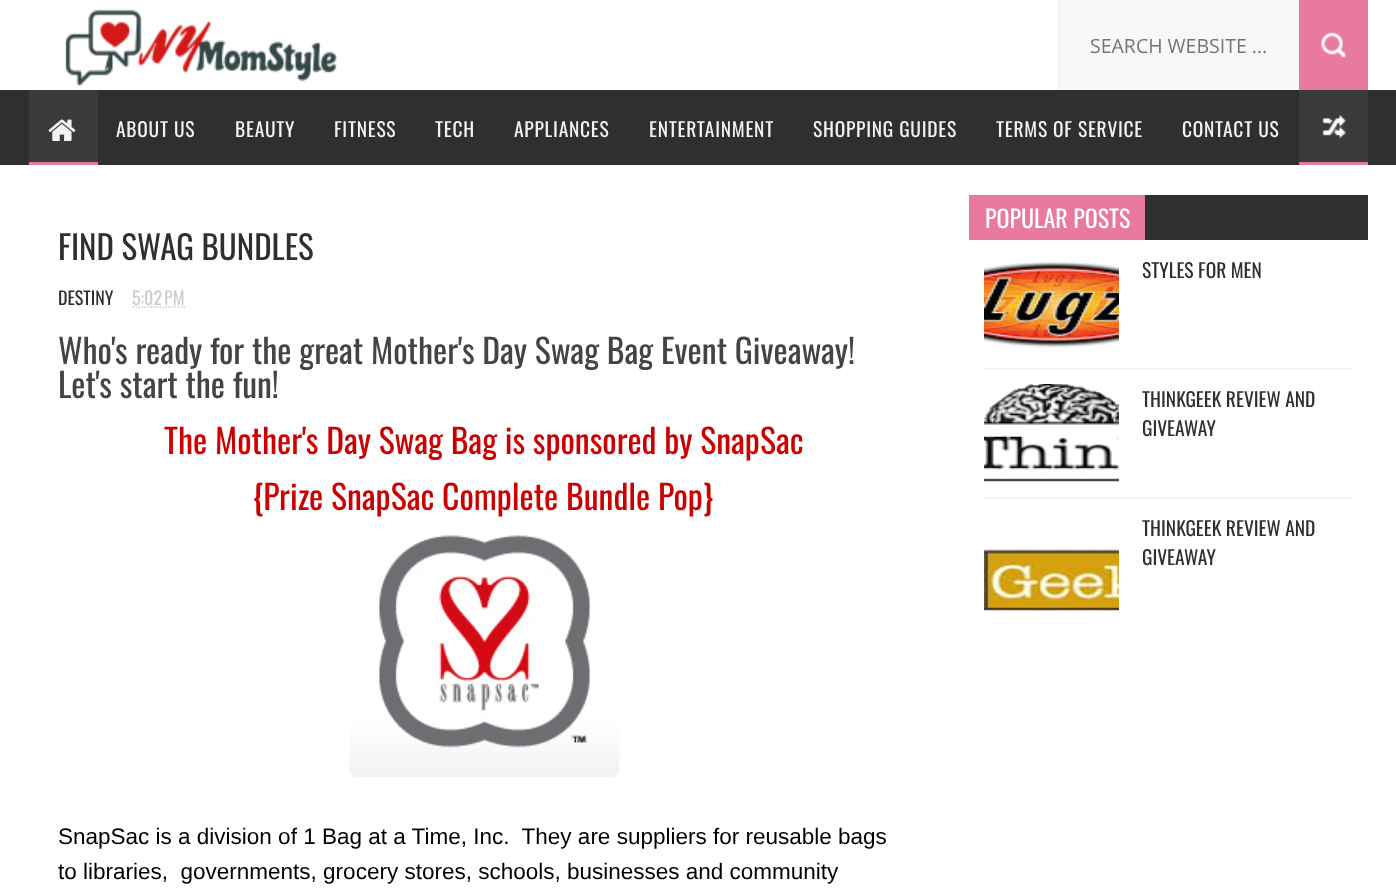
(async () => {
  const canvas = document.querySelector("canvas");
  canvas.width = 1396;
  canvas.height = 896;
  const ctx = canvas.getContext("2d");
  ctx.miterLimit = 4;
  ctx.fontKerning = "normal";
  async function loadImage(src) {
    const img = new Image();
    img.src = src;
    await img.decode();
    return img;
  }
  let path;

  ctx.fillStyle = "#ffffff";
  ctx.fillRect(0, 0, 1396, 896);
  ctx.drawImage(await loadImage("img/1.png"), 65, 9, 272, 77);
  for (const [x, y, w, h, color] of [
    [1060, 0, 239, 90, "#f8f8f8"],
    [1058, 0, 2, 90, "#f3f3f3"],
    [1299, 0, 69, 90, "#e87a9d"],
  ]) {
    ctx.fillStyle = color;
    ctx.fillRect(x, y, w, h);
  }
  ctx.drawImage(await loadImage("img/2.png"), 1321, 32, 25, 26);
  for (const [x, y, w, h, color] of [
    [0, 90, 1396, 75, "#2f2f2f"],
    [29, 90, 69, 72, "#3a3a3a"],
    [29, 162, 69, 3, "#e87a9d"],
  ]) {
    ctx.fillStyle = color;
    ctx.fillRect(x, y, w, h);
  }
  ctx.drawImage(await loadImage("img/3.png"), 48, 119, 28, 22);
  ctx.fillStyle = "#3a3a3a";
  ctx.fillRect(1299, 90, 69, 72);
  ctx.drawImage(await loadImage("img/4.png"), 1322, 115, 24, 24);
  ctx.fillStyle = "#e87a9d";
  ctx.fillRect(1299, 162, 69, 3);
  path = new Path2D("M132.5 307H185");
  ctx.strokeStyle = "#cccccc";
  ctx.lineWidth = 1.5;
  ctx.setLineDash([1.5, 1.5]);
  ctx.stroke(path);
  ctx.drawImage(await loadImage("img/5.png"), 349, 535, 271, 242);
  ctx.fillStyle = "#2f2f2f";
  ctx.fillRect(1145, 195, 223, 45);
  ctx.fillStyle = "#e87a9d";
  ctx.fillRect(969, 195, 176, 45);
  ctx.drawImage(await loadImage("img/6.png"), 984, 261, 135, 87);
  ctx.fillStyle = "#f3f3f3";
  ctx.fillRect(984, 368, 369, 2);
  ctx.drawImage(await loadImage("img/7.png"), 984, 384, 135, 98);
  ctx.fillRect(984, 497, 369, 2);
  ctx.drawImage(await loadImage("img/8.png"), 984, 546, 135, 65);
  ctx.font = "19.5px Open Sans";
  ctx.fillStyle = "#757575";
  ctx.fillText("SEARCH WEBSITE ...", 1090, 53);
  ctx.letterSpacing = "0.75px";
  ctx.font = "19.5px Oswald";
  ctx.fillStyle = "#f2f2f2";
  for (const [text, x, y] of [
    ["ABOUT US", 116, 137],
    ["BEAUTY", 235, 137],
    ["FITNESS", 334, 137],
    ["TECH", 435, 137],
    ["APPLIANCES", 514, 137],
    ["ENTERTAINMENT", 649, 137],
    ["SHOPPING GUIDES", 813, 137],
    ["TERMS OF SERVICE", 996, 137],
    ["CONTACT US", 1182, 137],
  ]) {
    ctx.fillText(text, x, y);
  }
  ctx.letterSpacing = "0px";
  ctx.font = "33px Oswald";
  ctx.fillStyle = "#2f2f2f";
  ctx.fillText("FIND SWAG BUNDLES", 58, 260);
  ctx.font = "18px Oswald";
  ctx.fillText("DESTINY", 58, 305);
  ctx.fillStyle = "#cccccc";
  ctx.fillText("5:02 PM", 132, 305);
  ctx.font = "33.75px Oswald";
  ctx.fillStyle = "#444444";
  ctx.fillText("Who's ready for the great Mother's Day Swag Bag Event Giveaway!", 58, 364);
  ctx.fillText("Let's start the fun!", 58, 398);
  ctx.fillStyle = "#cc0000";
  ctx.fillText("The Mother's Day Swag Bag is sponsored by SnapSac", 164, 454);
  ctx.fillText("{Prize SnapSac Complete Bundle Pop}", 253, 510);
  ctx.font = "22.5px Liberation Sans";
  ctx.fillStyle = "#000000";
  ctx.fillText("SnapSac is a division of 1 Bag at a Time, Inc.  They are suppliers for reusable bags", 58, 844);
  ctx.fillText("to libraries,  governments, grocery stores, schools, businesses and community", 58, 879);
  ctx.font = "24px Oswald";
  ctx.fillStyle = "#ffffff";
  ctx.fillText("POPULAR POSTS", 985, 228);
  ctx.font = "19.5px Oswald";
  ctx.fillStyle = "#2f2f2f";
  for (const [text, x, y] of [
    ["STYLES FOR MEN", 1142, 278],
    ["THINKGEEK REVIEW AND", 1142, 407],
    ["GIVEAWAY", 1142, 436],
    ["THINKGEEK REVIEW AND", 1142, 536],
    ["GIVEAWAY", 1142, 565],
  ]) {
    ctx.fillText(text, x, y);
  }
})();
